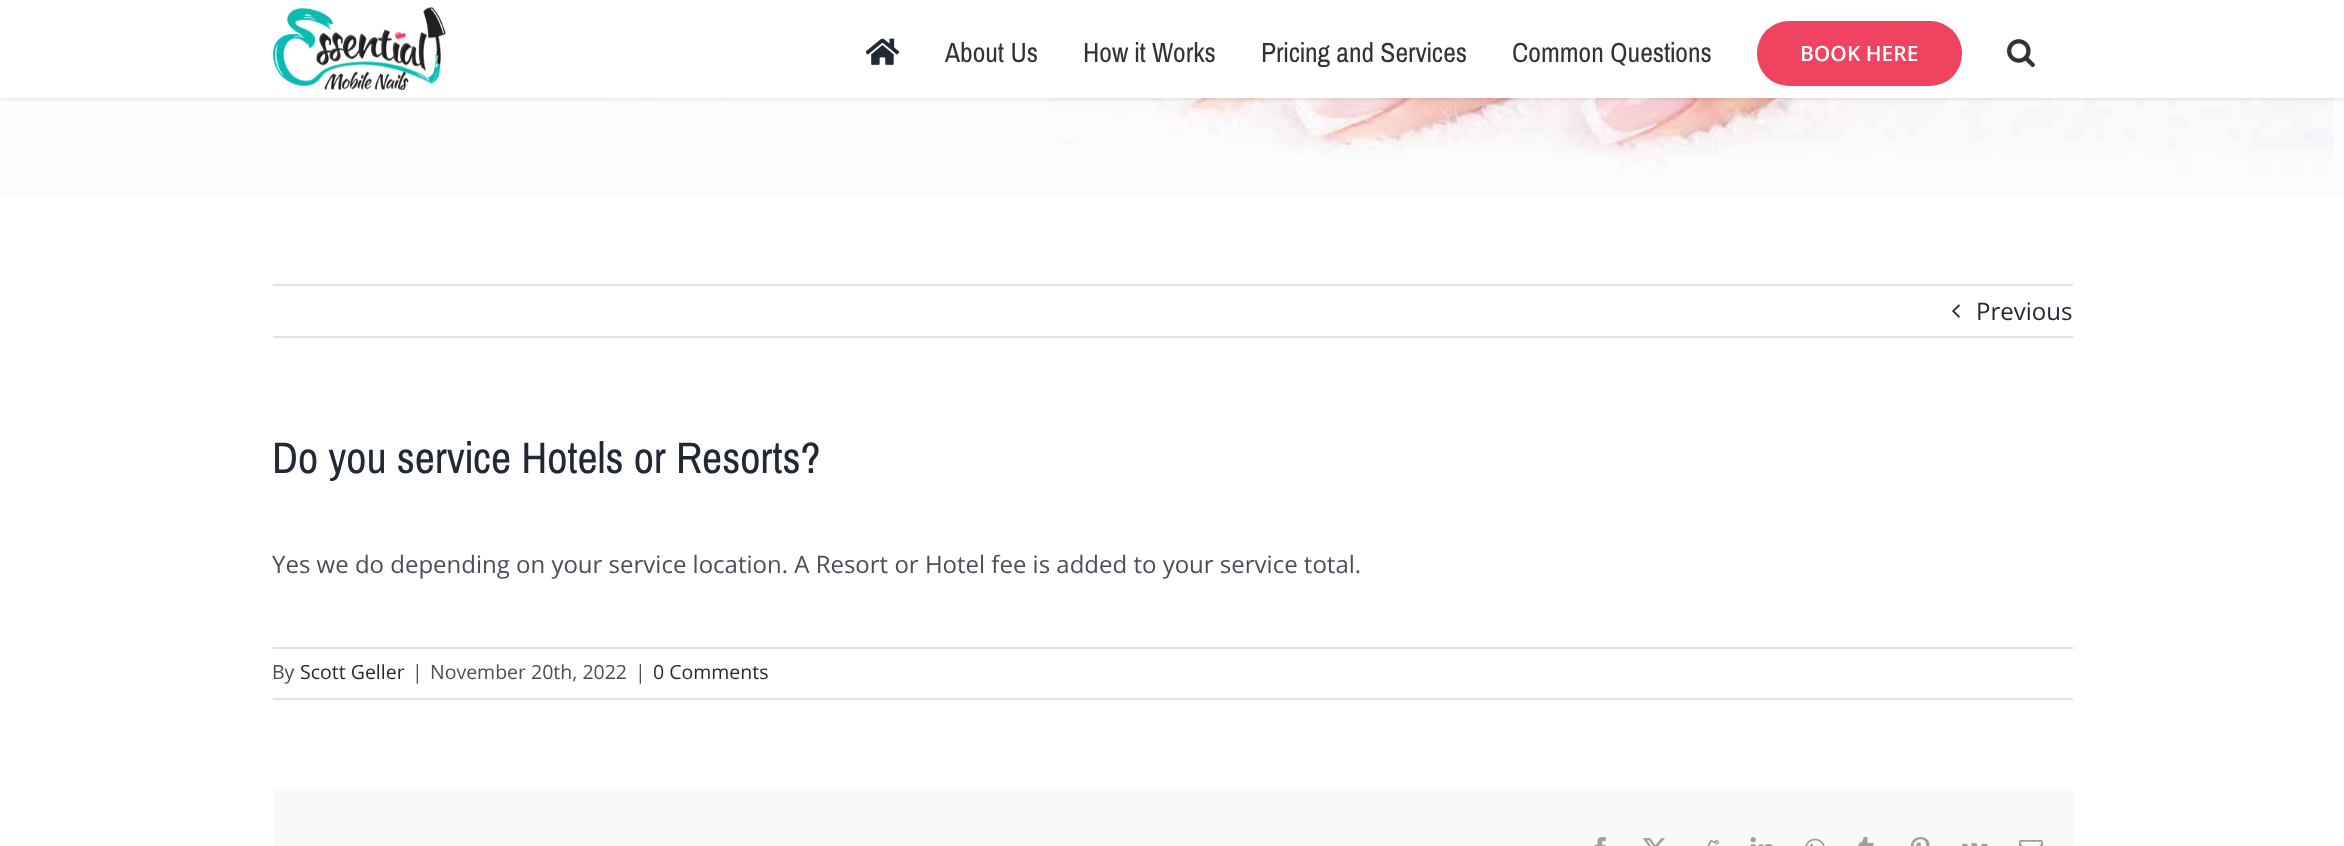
(async () => {
  const canvas = document.querySelector("canvas");
  canvas.width = 2344;
  canvas.height = 846;
  const ctx = canvas.getContext("2d");
  ctx.miterLimit = 4;
  ctx.fontKerning = "normal";
  async function loadImage(src) {
    const img = new Image();
    img.src = src;
    await img.decode();
    return img;
  }

  ctx.fillStyle = "#ffffff";
  ctx.fillRect(0, 0, 2344, 846);
  ctx.fillStyle = "#f2f3f5";
  ctx.fillRect(0, 193, 2344, 1);
  ctx.drawImage(await loadImage("img/4.png"), 0, 98, 2344, 96);
  ctx.fillStyle = "rgba(0, 0, 0, 0.12)";
  ctx.filter = "blur(2px)";
  ctx.beginPath();
  ctx.rect(0, 2, 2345, 97);
  ctx.fill();
  ctx.filter = "none";
  ctx.fillStyle = "#ffffff";
  ctx.fillRect(0, 0, 2344, 98);
  ctx.drawImage(await loadImage("img/1.png"), 273, 7, 173, 83);
  ctx.drawImage(await loadImage("img/2.png"), 866, 38, 34, 27);
  ctx.fillStyle = "#ef4360";
  ctx.beginPath();
  ctx.roundRect(1757, 21, 205, 65, 32);
  ctx.fill();
  ctx.drawImage(await loadImage("img/3.png"), 2007, 39, 28, 28);
  ctx.fillStyle = "#e2e2e2";
  ctx.fillRect(273, 284, 1800, 2);
  ctx.fillRect(273, 336, 1800, 2);
  ctx.drawImage(await loadImage("img/5.png"), 1952, 304, 8, 14);
  for (const [x, y, w, h, color] of [
    [273, 647, 1800, 2, "#e2e2e2"],
    [273, 698, 1800, 2, "#e2e2e2"],
    [273, 789, 1800, 57, "#f9f9fb"],
  ]) {
    ctx.fillStyle = color;
    ctx.fillRect(x, y, w, h);
  }
  ctx.drawImage(await loadImage("img/6.png"), 1594, 837, 12, 9);
  ctx.drawImage(await loadImage("img/7.png"), 1642, 838, 23, 8);
  ctx.drawImage(await loadImage("img/8.png"), 1707, 840, 12, 6);
  ctx.drawImage(await loadImage("img/9.png"), 1750, 837, 23, 9);
  ctx.drawImage(await loadImage("img/10.png"), 1805, 838, 20, 8);
  ctx.drawImage(await loadImage("img/11.png"), 1858, 837, 16, 9);
  ctx.drawImage(await loadImage("img/12.png"), 1910, 837, 20, 9);
  ctx.drawImage(await loadImage("img/13.png"), 1962, 843, 26, 3);
  ctx.drawImage(await loadImage("img/14.png"), 2019, 840, 24, 6);
  ctx.font = "30px Pragati Narrow";
  ctx.fillStyle = "#333333";
  for (const [text, x, y] of [
    ["About Us", 945, 62],
    ["How it Works", 1083, 62],
    ["Pricing and Services", 1261, 62],
    ["Common Questions", 1512, 62],
  ]) {
    ctx.fillText(text, x, y);
  }
  ctx.font = "600 21px Open Sans";
  ctx.fillStyle = "#ffffff";
  ctx.fillText("BOOK HERE", 1800, 61);
  ctx.font = "24px Open Sans";
  ctx.fillStyle = "#212934";
  ctx.fillText("Previous", 1976, 320);
  ctx.font = "48px Pragati Narrow";
  ctx.fillText("Do you service Hotels or Resorts?", 272, 473);
  ctx.font = "24px Open Sans";
  ctx.fillStyle = "#4a4e57";
  ctx.fillText("Yes we do depending on your service location. A Resort or Hotel fee is added to your service total.", 272, 573);
  ctx.font = "19.5px Open Sans";
  ctx.fillText("By", 272, 679);
  ctx.fillStyle = "#212934";
  ctx.fillText("Scott Geller", 300, 679);
  ctx.fillStyle = "#4a4e57";
  for (const [text, x, y] of [
    ["|", 412, 679],
    ["November 20th, 2022", 430, 679],
    ["|", 635, 679],
  ]) {
    ctx.fillText(text, x, y);
  }
  ctx.fillStyle = "#212934";
  ctx.fillText("0 Comments", 653, 679);
})();
